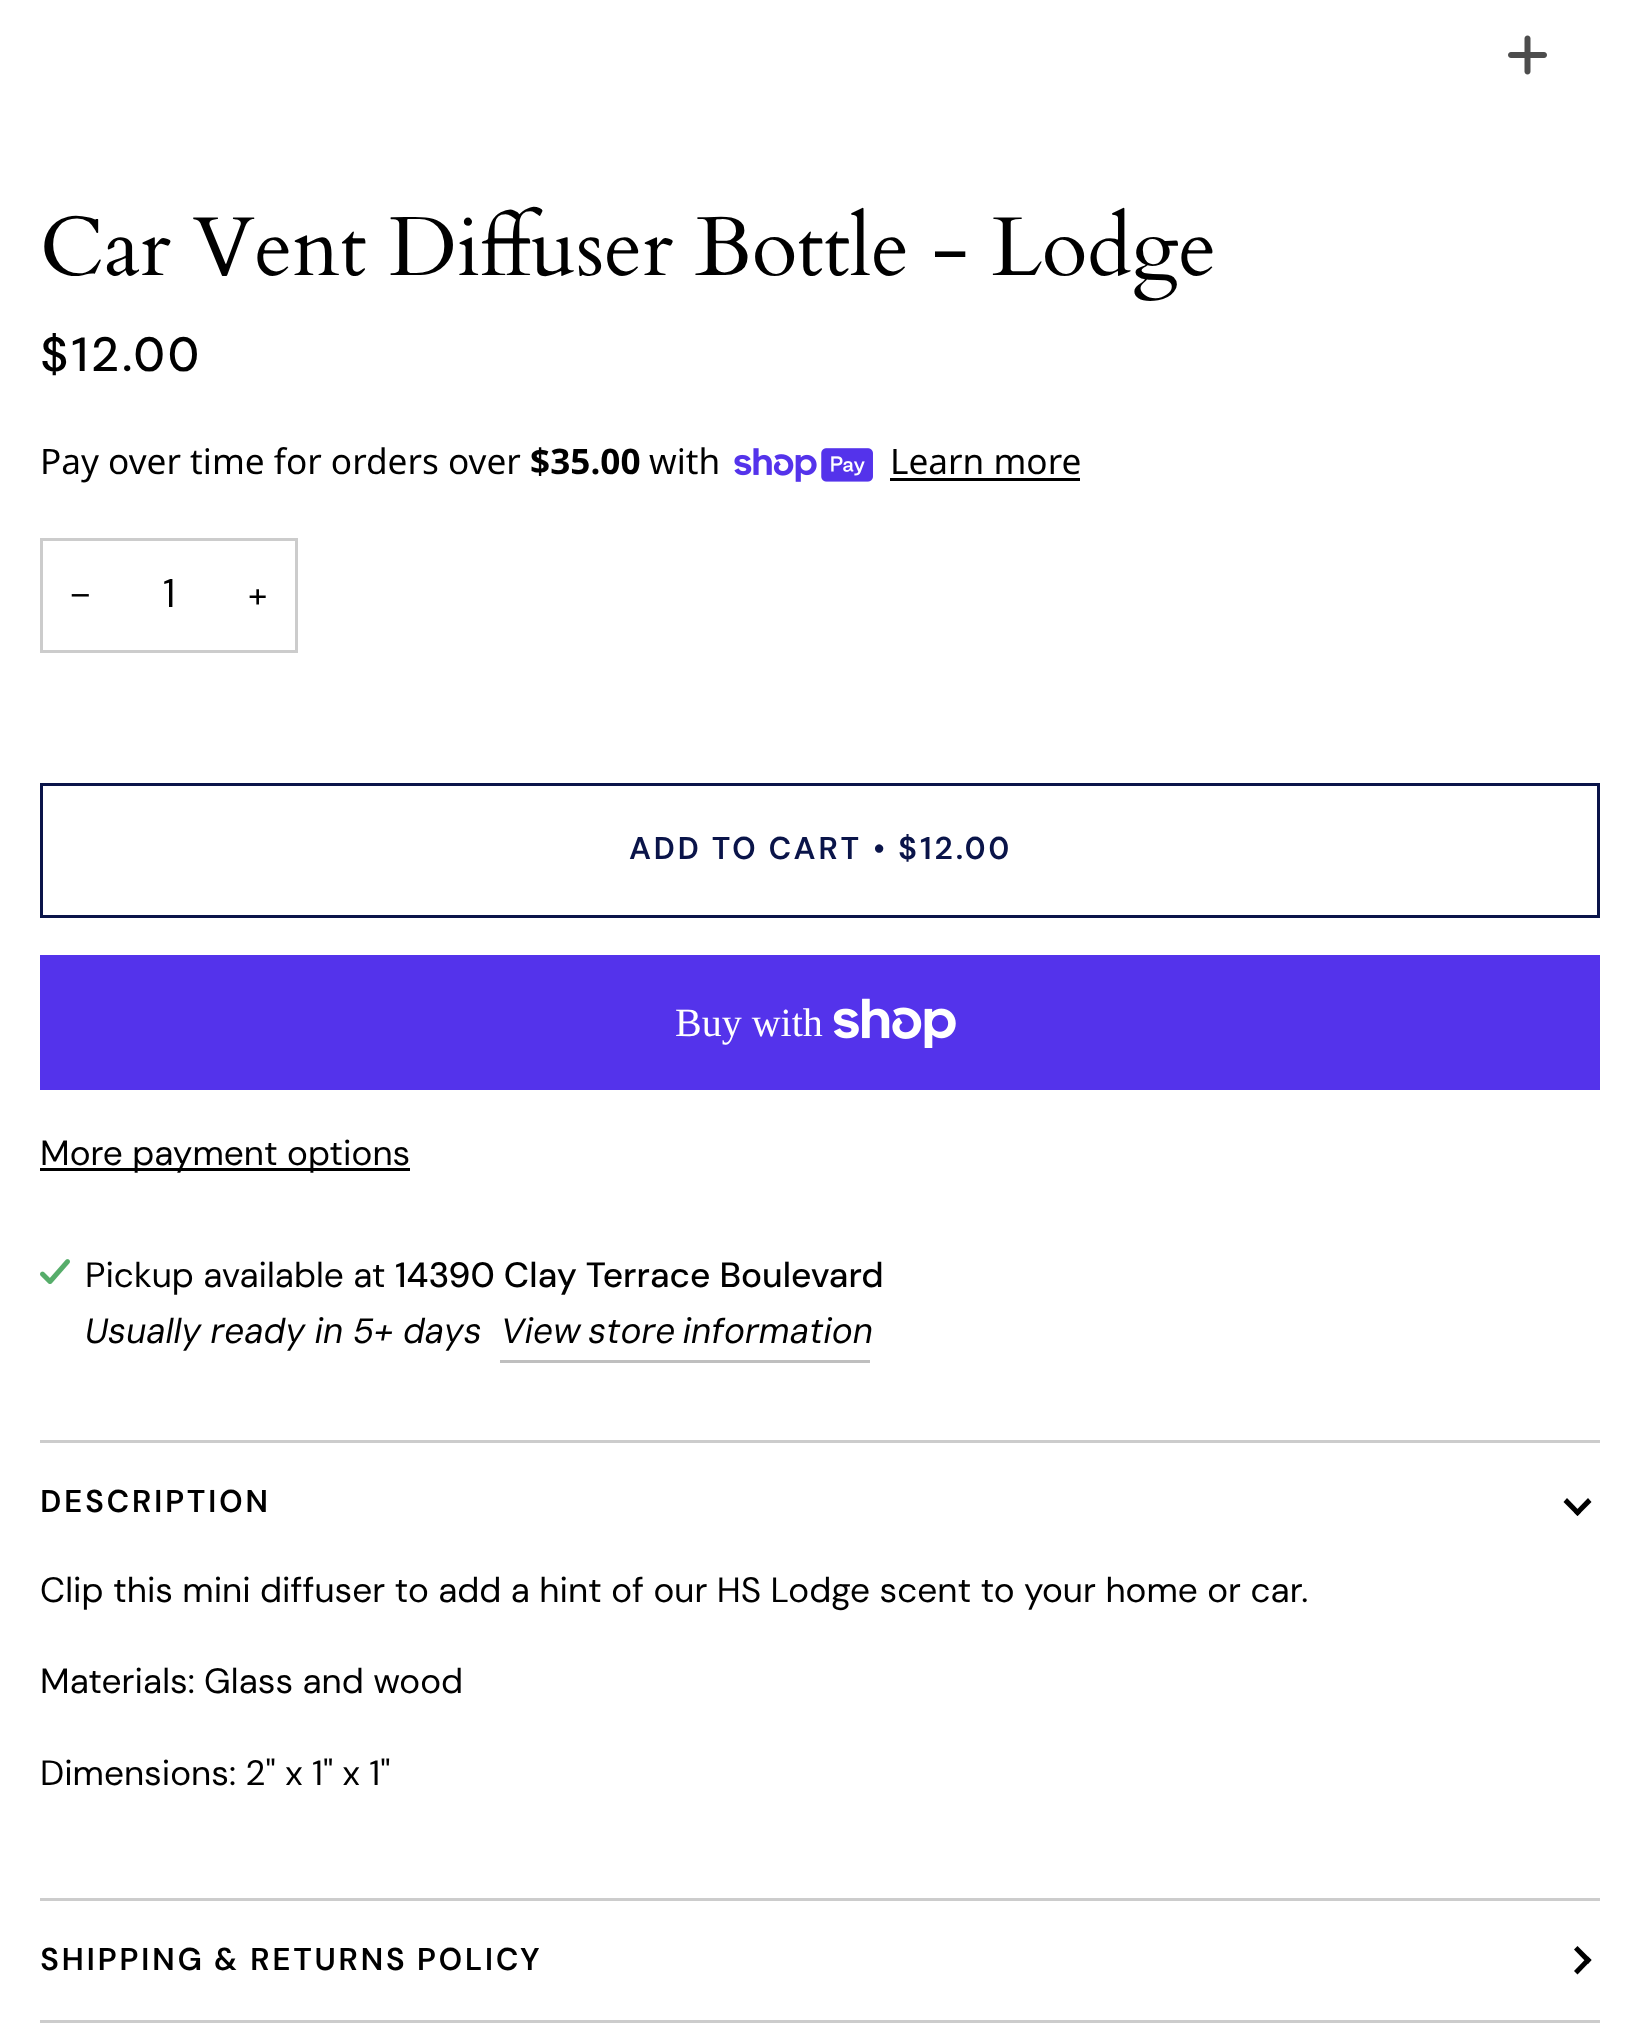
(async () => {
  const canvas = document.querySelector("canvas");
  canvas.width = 1640;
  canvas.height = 2038;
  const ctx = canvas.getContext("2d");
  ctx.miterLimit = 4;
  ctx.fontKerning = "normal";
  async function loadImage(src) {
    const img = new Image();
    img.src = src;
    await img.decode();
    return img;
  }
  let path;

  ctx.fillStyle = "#ffffff";
  ctx.fillRect(0, 0, 1640, 2038);
  ctx.drawImage(await loadImage("img/1.png"), 1508, 35, 39, 40);
  ctx.drawImage(await loadImage("img/2.png"), 734, 448, 139, 34);
  ctx.fillStyle = "#000000";
  ctx.fillRect(890, 478, 190, 3);
  ctx.strokeStyle = "#cccccc";
  ctx.lineWidth = 3;
  ctx.strokeRect(41.5, 539.5, 255, 112);
  ctx.strokeStyle = "#0a1449";
  ctx.strokeRect(41.5, 784.5, 1557, 132);
  ctx.fillStyle = "#5433eb";
  ctx.fillRect(40, 955, 1560, 135);
  ctx.drawImage(await loadImage("img/3.png"), 833, 998, 123, 50);
  ctx.fillStyle = "#000000";
  ctx.fillRect(40, 1168, 370, 3);
  ctx.drawImage(await loadImage("img/4.png"), 40, 1259, 30, 25);
  for (const [x, y, w, h, color] of [
    [500, 1360, 370, 3, "#bfbfbf"],
    [40, 1440, 1560, 3, "#cccccc"],
    [40, 1898, 1560, 3, "#cccccc"],
  ]) {
    ctx.fillStyle = color;
    ctx.fillRect(x, y, w, h);
  }
  ctx.fillStyle = "#000000";
  path = new Path2D("M1574 1512.5L1588 1498L1591.5 1502L1577.5 1516Z");
  ctx.fill(path);
  path = new Path2D("M1563.5 1502L1567 1498L1581 1512.5L1577.5 1516Z");
  ctx.fill(path);
  ctx.fillStyle = "#cccccc";
  ctx.fillRect(40, 2020, 1560, 3);
  ctx.fillStyle = "#000000";
  path = new Path2D("M1588 1964L1574 1949.5L1577.5 1946L1591.5 1960Z");
  ctx.fill(path);
  path = new Path2D("M1577.5 1974.5L1574 1971L1588 1956.5L1591.5 1960Z");
  ctx.fill(path);
  ctx.font = "83.6px Cardo";
  ctx.fillText("Car Vent Diffuser Bottle - Lodge", 40, 275);
  ctx.letterSpacing = "2.5px";
  ctx.font = "500 48px DM Sans";
  ctx.fillText("$12.00", 40, 371);
  ctx.letterSpacing = "0px";
  ctx.font = "35.2px Noto Sans";
  ctx.fillText("Pay over time for orders over", 40, 474);
  ctx.font = "bold 35.2px Noto Sans";
  ctx.fillText("$35.00", 530, 474);
  ctx.font = "35.2px Noto Sans";
  ctx.fillText("with", 649, 474);
  ctx.fillText("Learn more", 890, 474);
  ctx.font = "35.2px Liberation Sans";
  ctx.fillText("−", 70, 607);
  ctx.font = "40px 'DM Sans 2'";
  ctx.fillText("1", 163, 607);
  ctx.font = "35.2px DM Sans";
  ctx.fillText("+", 248, 607);
  ctx.letterSpacing = "2.5px";
  ctx.font = "600 31.5px DM Sans";
  ctx.fillStyle = "#0a1449";
  ctx.fillText("ADD TO CART", 629, 859);
  ctx.fillText("• $12.00", 873, 859);
  ctx.letterSpacing = "0px";
  ctx.font = "40px Liberation Serif";
  ctx.fillStyle = "#ffffff";
  ctx.fillText("Buy with", 675, 1036);
  ctx.font = "35.2px DM Sans";
  ctx.fillStyle = "#000000";
  ctx.fillText("More payment options", 40, 1165);
  ctx.fillText("Pickup available at", 85, 1287);
  ctx.font = "500 35.2px 'DM Sans 2'";
  ctx.fillText("14390 Clay Terrace Boulevard", 395, 1287);
  ctx.font = "italic 35.2px DM Sans";
  ctx.fillText("Usually ready in 5+ days", 85, 1343);
  ctx.wordSpacing = "-2px";
  ctx.fillText("View store information", 501, 1343);
  ctx.letterSpacing = "2.5px";
  ctx.wordSpacing = "0px";
  ctx.font = "600 31.5px DM Sans";
  ctx.fillText("DESCRIPTION", 40, 1512);
  ctx.letterSpacing = "0px";
  ctx.font = "35.2px DM Sans";
  for (const [text, x, y] of [
    ["Clip this mini diffuser to add a hint of our HS Lodge scent to your home or car.", 40, 1602],
    ["Materials: Glass and wood", 40, 1693],
    ["Dimensions: 2\" x 1\" x 1\"", 40, 1785],
  ]) {
    ctx.fillText(text, x, y);
  }
  ctx.letterSpacing = "2.5px";
  ctx.wordSpacing = "-1px";
  ctx.font = "600 31.5px DM Sans";
  ctx.fillText("SHIPPING & RETURNS POLICY", 40, 1970);
})();
